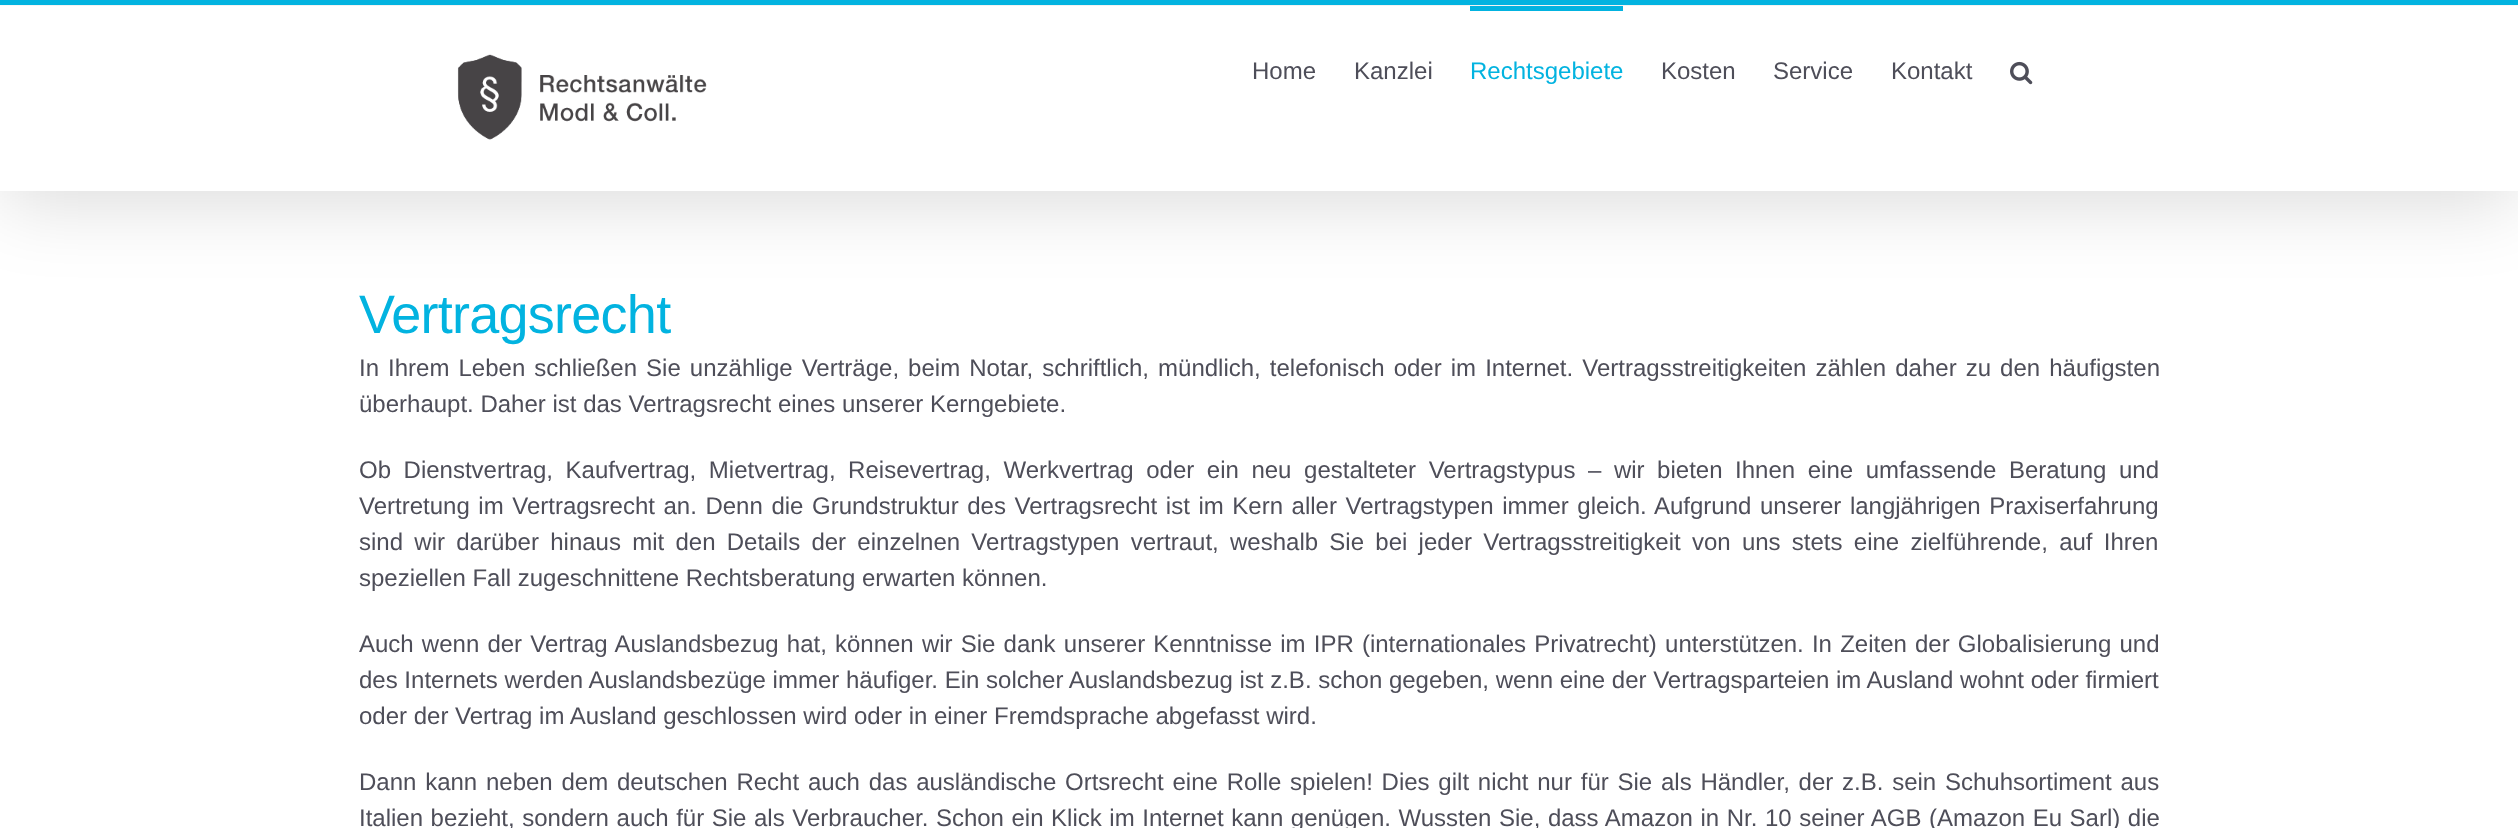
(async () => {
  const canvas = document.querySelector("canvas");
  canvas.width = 2518;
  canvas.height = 828;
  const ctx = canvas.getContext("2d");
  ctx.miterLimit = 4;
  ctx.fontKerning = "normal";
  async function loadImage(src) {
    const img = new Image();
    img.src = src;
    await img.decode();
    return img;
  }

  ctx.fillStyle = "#ffffff";
  ctx.fillRect(0, 0, 2518, 828);
  ctx.fillStyle = "rgba(0, 0, 0, 0.14)";
  ctx.filter = "blur(37.5px)";
  ctx.beginPath();
  ctx.rect(3, 18, 2513, 185);
  ctx.fill();
  ctx.filter = "none";
  ctx.fillStyle = "#02b3e0";
  ctx.fillRect(0, 0, 2518, 5);
  ctx.fillStyle = "#ffffff";
  ctx.fillRect(0, 6, 2518, 185);
  ctx.drawImage(await loadImage("img/1.png"), 457, 54, 250, 86);
  ctx.fillStyle = "#02b3e0";
  ctx.fillRect(1470, 6, 153, 5);
  ctx.drawImage(await loadImage("img/2.png"), 2010, 61, 23, 24);
  ctx.font = "24px Liberation Sans";
  ctx.fillStyle = "#4e4e59";
  ctx.fillText("Home", 1252, 79);
  ctx.fillText("Kanzlei", 1354, 79);
  ctx.fillStyle = "#02b3e0";
  ctx.fillText("Rechtsgebiete", 1470, 79);
  ctx.fillStyle = "#4e4e59";
  for (const [text, x, y] of [
    ["Kosten", 1661, 79],
    ["Service", 1773, 79],
    ["Kontakt", 1891, 79],
  ]) {
    ctx.fillText(text, x, y);
  }
  ctx.letterSpacing = "-0.75px";
  ctx.font = "54px Liberation Sans";
  ctx.fillStyle = "#02b3e0";
  ctx.fillText("Vertragsrecht", 359, 333);
  ctx.letterSpacing = "0px";
  ctx.wordSpacing = "2.4px";
  ctx.font = "24px Liberation Sans";
  ctx.fillStyle = "#4e4e59";
  ctx.fillText("In Ihrem Leben schließen Sie unzählige Verträge, beim Notar, schriftlich, mündlich, telefonisch oder im Internet. Vertragsstreitigkeiten zählen daher zu den häufigsten", 359, 376);
  ctx.wordSpacing = "0px";
  ctx.fillText("überhaupt. Daher ist das Vertragsrecht eines unserer Kerngebiete.", 359, 412);
  ctx.wordSpacing = "5.9px";
  ctx.fillText("Ob Dienstvertrag, Kaufvertrag, Mietvertrag, Reisevertrag, Werkvertrag oder ein neu gestalteter Vertragstypus – wir bieten Ihnen eine umfassende Beratung und", 359, 478);
  ctx.wordSpacing = "1.9px";
  ctx.fillText("Vertretung im Vertragsrecht an. Denn die Grundstruktur des Vertragsrecht ist im Kern aller Vertragstypen immer gleich. Aufgrund unserer langjährigen Praxiserfahrung", 359, 514);
  ctx.wordSpacing = "4.6px";
  ctx.fillText("sind wir darüber hinaus mit den Details der einzelnen Vertragstypen vertraut, weshalb Sie bei jeder Vertragsstreitigkeit von uns stets eine zielführende, auf Ihren", 359, 550);
  ctx.wordSpacing = "0px";
  ctx.fillText("speziellen Fall zugeschnittene Rechtsberatung erwarten können.", 359, 586);
  ctx.wordSpacing = "1.5px";
  ctx.fillText("Auch wenn der Vertrag Auslandsbezug hat, können wir Sie dank unserer Kenntnisse im IPR (internationales Privatrecht) unterstützen. In Zeiten der Globalisierung und", 359, 652);
  ctx.wordSpacing = "0px";
  ctx.fillText("des Internets werden Auslandsbezüge immer häufiger. Ein solcher Auslandsbezug ist z.B. schon gegeben, wenn eine der Vertragsparteien im Ausland wohnt oder firmiert", 359, 688);
  ctx.fillText("oder der Vertrag im Ausland geschlossen wird oder in einer Fremdsprache abgefasst wird.", 359, 724);
  ctx.wordSpacing = "2.1px";
  ctx.fillText("Dann kann neben dem deutschen Recht auch das ausländische Ortsrecht eine Rolle spielen! Dies gilt nicht nur für Sie als Händler, der z.B. sein Schuhsortiment aus", 359, 790);
  ctx.wordSpacing = "0.9px";
  ctx.fillText("Italien bezieht, sondern auch für Sie als Verbraucher. Schon ein Klick im Internet kann genügen. Wussten Sie, dass Amazon in Nr. 10 seiner AGB (Amazon Eu Sarl) die", 359, 826);
})();
